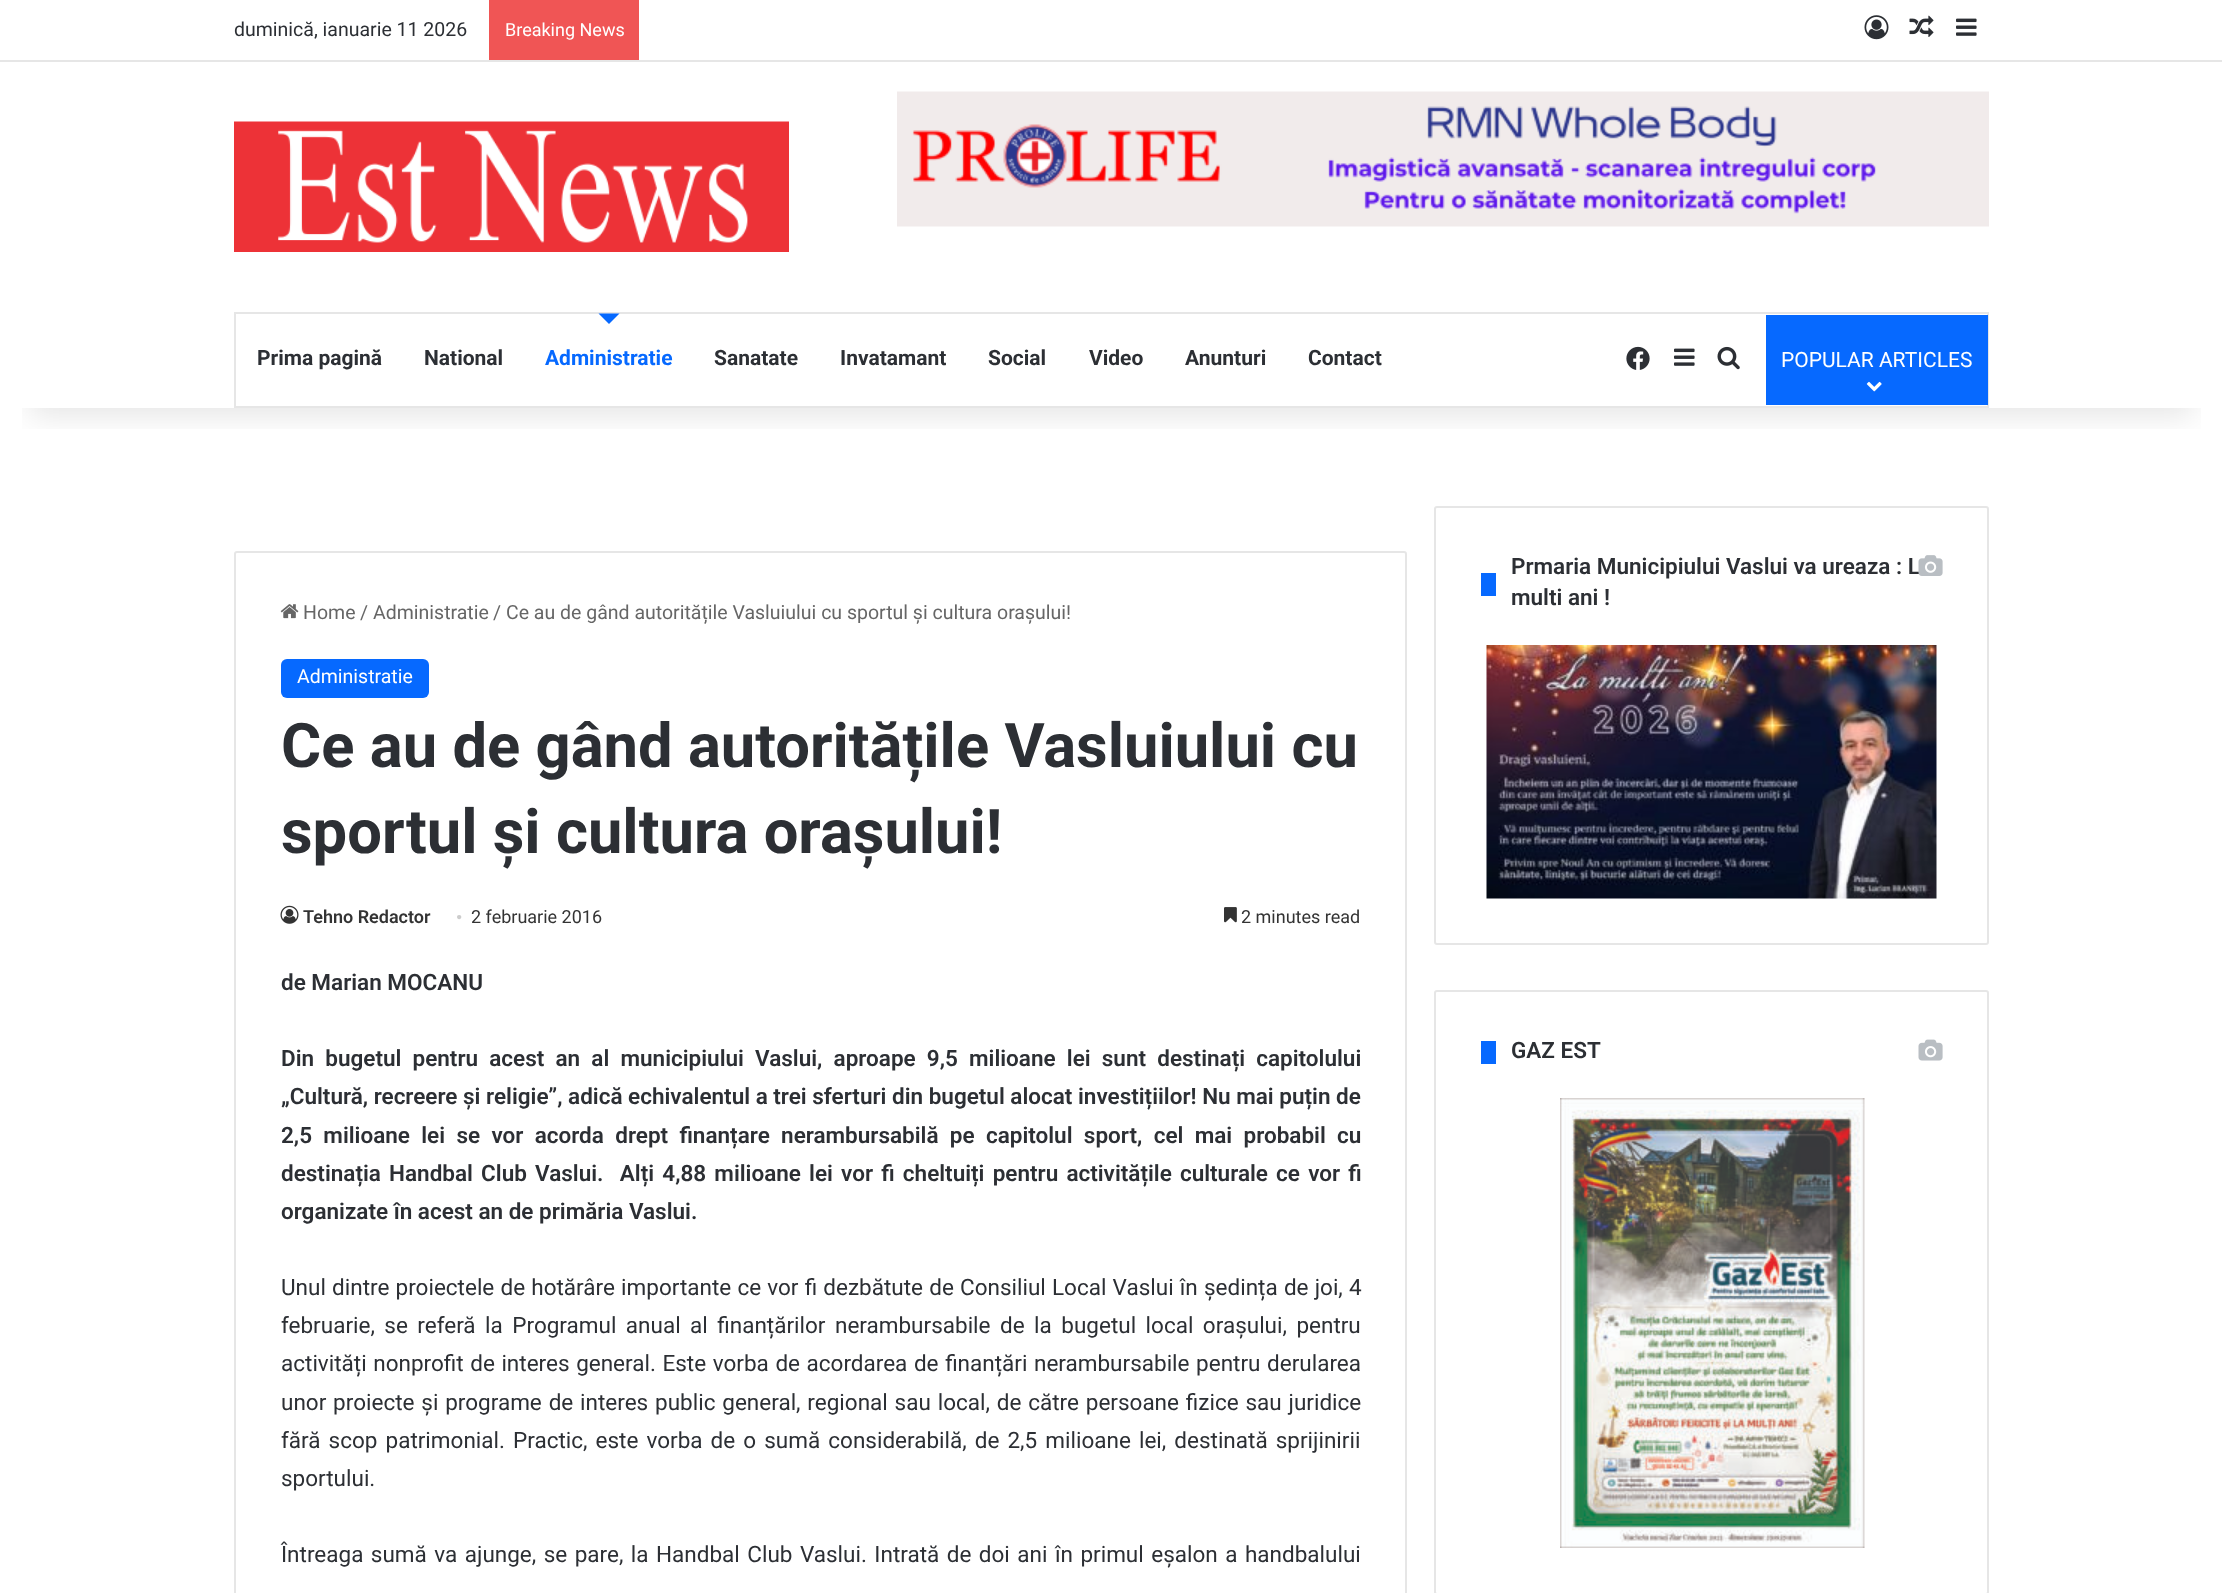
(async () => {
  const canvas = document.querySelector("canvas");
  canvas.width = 2222;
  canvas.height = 1593;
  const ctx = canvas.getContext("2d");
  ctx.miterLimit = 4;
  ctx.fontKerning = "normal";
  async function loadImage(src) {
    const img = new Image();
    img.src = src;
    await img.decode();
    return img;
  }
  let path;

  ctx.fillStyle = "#ffffff";
  ctx.fillRect(0, 0, 2222, 1593);
  ctx.save();
  ctx.beginPath();
  ctx.rect(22, 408, 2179, 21);
  ctx.clip();
  ctx.fillStyle = "rgba(0, 0, 0, 0.1)";
  ctx.filter = "blur(15px)";
  ctx.beginPath();
  ctx.rect(30, 68, 2163, 348);
  ctx.fill();
  ctx.filter = "none";
  ctx.restore();
  ctx.fillStyle = "#e6e6e6";
  ctx.fillRect(0, 60, 2222, 2);
  ctx.fillStyle = "#f05555";
  ctx.fillRect(489, 0, 150, 60);
  ctx.drawImage(await loadImage("img/1.png"), 1864, 15, 25, 25);
  ctx.drawImage(await loadImage("img/2.png"), 1909, 15, 25, 22);
  ctx.drawImage(await loadImage("img/3.png"), 1956, 18, 21, 18);
  ctx.drawImage(await loadImage("img/4.png"), 234, 121, 555, 131);
  ctx.drawImage(await loadImage("img/5.png"), 897, 91, 1092, 136);
  ctx.strokeStyle = "#e6e6e6";
  ctx.lineWidth = 2;
  ctx.strokeRect(235, 313, 1753, 94);
  ctx.fillStyle = "#0669ff";
  path = new Path2D("M598.5 313.5H619.5L609 324Z");
  ctx.fill(path);
  ctx.drawImage(await loadImage("img/6.png"), 1626, 346, 24, 24);
  ctx.drawImage(await loadImage("img/3.png"), 1674, 348, 21, 18);
  ctx.drawImage(await loadImage("img/7.png"), 1717, 346, 23, 24);
  ctx.fillRect(1766, 315, 222, 90);
  ctx.drawImage(await loadImage("img/8.png"), 1866, 381, 16, 11);
  ctx.beginPath();
  ctx.roundRect(235, 552, 1171, 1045, 2);
  ctx.stroke();
  ctx.drawImage(await loadImage("img/9.png"), 280, 604, 19, 15);
  ctx.beginPath();
  ctx.roundRect(281, 659, 148, 39, 6);
  ctx.fill();
  ctx.drawImage(await loadImage("img/10.png"), 280, 905, 19, 19);
  ctx.drawImage(await loadImage("img/11.png"), 1224, 907, 13, 16);
  ctx.beginPath();
  ctx.roundRect(1435, 507, 553, 437, 2);
  ctx.stroke();
  ctx.fillRect(1481, 573, 15, 23);
  ctx.drawImage(await loadImage("img/13.png"), 1486, 645, 451, 254);
  ctx.beginPath();
  ctx.roundRect(1435, 991, 553, 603, 2);
  ctx.stroke();
  ctx.fillRect(1481, 1041, 15, 23);
  ctx.drawImage(await loadImage("img/14.png"), 1918, 1039, 25, 22);
  ctx.drawImage(await loadImage("img/15.png"), 1560, 1098, 305, 450);
  ctx.font = "19.5px Roboto";
  ctx.fillStyle = "#2c2f34";
  ctx.fillText("duminică, ianuarie 11 2026", 234, 36);
  ctx.font = "18px Roboto";
  ctx.fillStyle = "#ffffff";
  ctx.fillText("Breaking News", 505, 36);
  ctx.font = "bold 21px Roboto";
  ctx.fillStyle = "#2c2f34";
  ctx.fillText("Prima pagină", 257, 365);
  ctx.fillText("National", 424, 365);
  ctx.fillStyle = "#0669ff";
  ctx.fillText("Administratie", 545, 365);
  ctx.fillStyle = "#2c2f34";
  for (const [text, x, y] of [
    ["Sanatate", 714, 365],
    ["Invatamant", 840, 365],
    ["Social", 988, 365],
    ["Video", 1089, 365],
    ["Anunturi", 1185, 365],
    ["Contact", 1308, 365],
  ]) {
    ctx.fillText(text, x, y);
  }
  ctx.font = "21px Roboto";
  ctx.fillStyle = "#ffffff";
  ctx.fillText("POPULAR ARTICLES", 1781, 367);
  ctx.font = "19.5px Roboto";
  ctx.fillStyle = "#666666";
  for (const [text, x, y] of [
    ["Home", 303, 619],
    ["/", 360, 619],
    ["Administratie", 373, 619],
    ["/", 493, 619],
    ["Ce au de gând autoritățile Vasluiului cu sportul și cultura orașului!", 506, 619],
  ]) {
    ctx.fillText(text, x, y);
  }
  ctx.fillStyle = "#ffffff";
  ctx.fillText("Administratie", 297, 683);
  ctx.font = "bold 61.5px Roboto";
  ctx.fillStyle = "#2c2f34";
  ctx.fillText("Ce au de gând autoritățile Vasluiului cu", 281, 767);
  ctx.fillText("sportul și cultura orașului!", 281, 853);
  ctx.font = "600 18px Roboto";
  ctx.fillStyle = "#333333";
  ctx.fillText("Tehno Redactor", 303, 923);
  ctx.font = "18px Liberation Serif";
  ctx.fillStyle = "#cccccc";
  ctx.fillText("•", 456, 923);
  ctx.font = "18px Roboto";
  ctx.fillStyle = "#333333";
  ctx.fillText("2 februarie 2016", 471, 923);
  ctx.fillText("2 minutes read", 1241, 923);
  ctx.font = "600 22.5px Roboto";
  ctx.fillStyle = "#2c2f34";
  ctx.fillText("de Marian MOCANU", 281, 990);
  ctx.wordSpacing = "5.6px";
  ctx.fillText("Din bugetul pentru acest an al municipiului Vaslui, aproape 9,5 milioane lei sunt destinați capitolului", 281, 1066);
  ctx.wordSpacing = "0px";
  ctx.fillText("„Cultură, recreere și religie”, adică echivalentul a trei sferturi din bugetul alocat investițiilor! Nu mai puțin de", 281, 1104);
  ctx.wordSpacing = "5.75px";
  ctx.fillText("2,5 milioane lei se vor acorda drept finanțare nerambursabilă pe capitolul sport, cel mai probabil cu", 281, 1143);
  ctx.wordSpacing = "2.6px";
  ctx.fillText("destinația Handbal Club Vaslui.  Alți 4,88 milioane lei vor fi cheltuiți pentru activitățile culturale ce vor fi", 281, 1181);
  ctx.wordSpacing = "0px";
  ctx.fillText("organizate în acest an de primăria Vaslui.", 281, 1219);
  ctx.wordSpacing = "0.6px";
  ctx.font = "22.5px Roboto";
  ctx.fillText("Unul dintre proiectele de hotărâre importante ce vor fi dezbătute de Consiliul Local Vaslui în ședința de joi, 4", 281, 1295);
  ctx.wordSpacing = "3.9px";
  ctx.fillText("februarie, se referă la Programul anual al finanțărilor nerambursabile de la bugetul local orașului, pentru", 281, 1333);
  ctx.wordSpacing = "1px";
  ctx.fillText("activități nonprofit de interes general. Este vorba de acordarea de finanțări nerambursabile pentru derularea", 281, 1371);
  ctx.wordSpacing = "1.25px";
  ctx.fillText("unor proiecte și programe de interes public general, regional sau local, de către persoane fizice sau juridice", 281, 1410);
  ctx.wordSpacing = "2.5px";
  ctx.fillText("fără scop patrimonial. Practic, este vorba de o sumă considerabilă, de 2,5 milioane lei, destinată sprijinirii", 281, 1448);
  ctx.wordSpacing = "0px";
  ctx.fillText("sportului.", 281, 1486);
  ctx.wordSpacing = "1.9px";
  ctx.fillText("Întreaga sumă va ajunge, se pare, la Handbal Club Vaslui. Intrată de doi ani în primul eșalon a handbalului", 281, 1562);
  ctx.wordSpacing = "0px";
  ctx.font = "600 22.5px Roboto";
  ctx.fillText("Prmaria Municipiului Vaslui va ureaza : L", 1511, 574);
  ctx.drawImage(await loadImage("img/12.png"), 1918, 555, 25, 21);
  ctx.fillText("multi ani !", 1511, 605);
  ctx.fillText("GAZ EST", 1511, 1058);
})();
